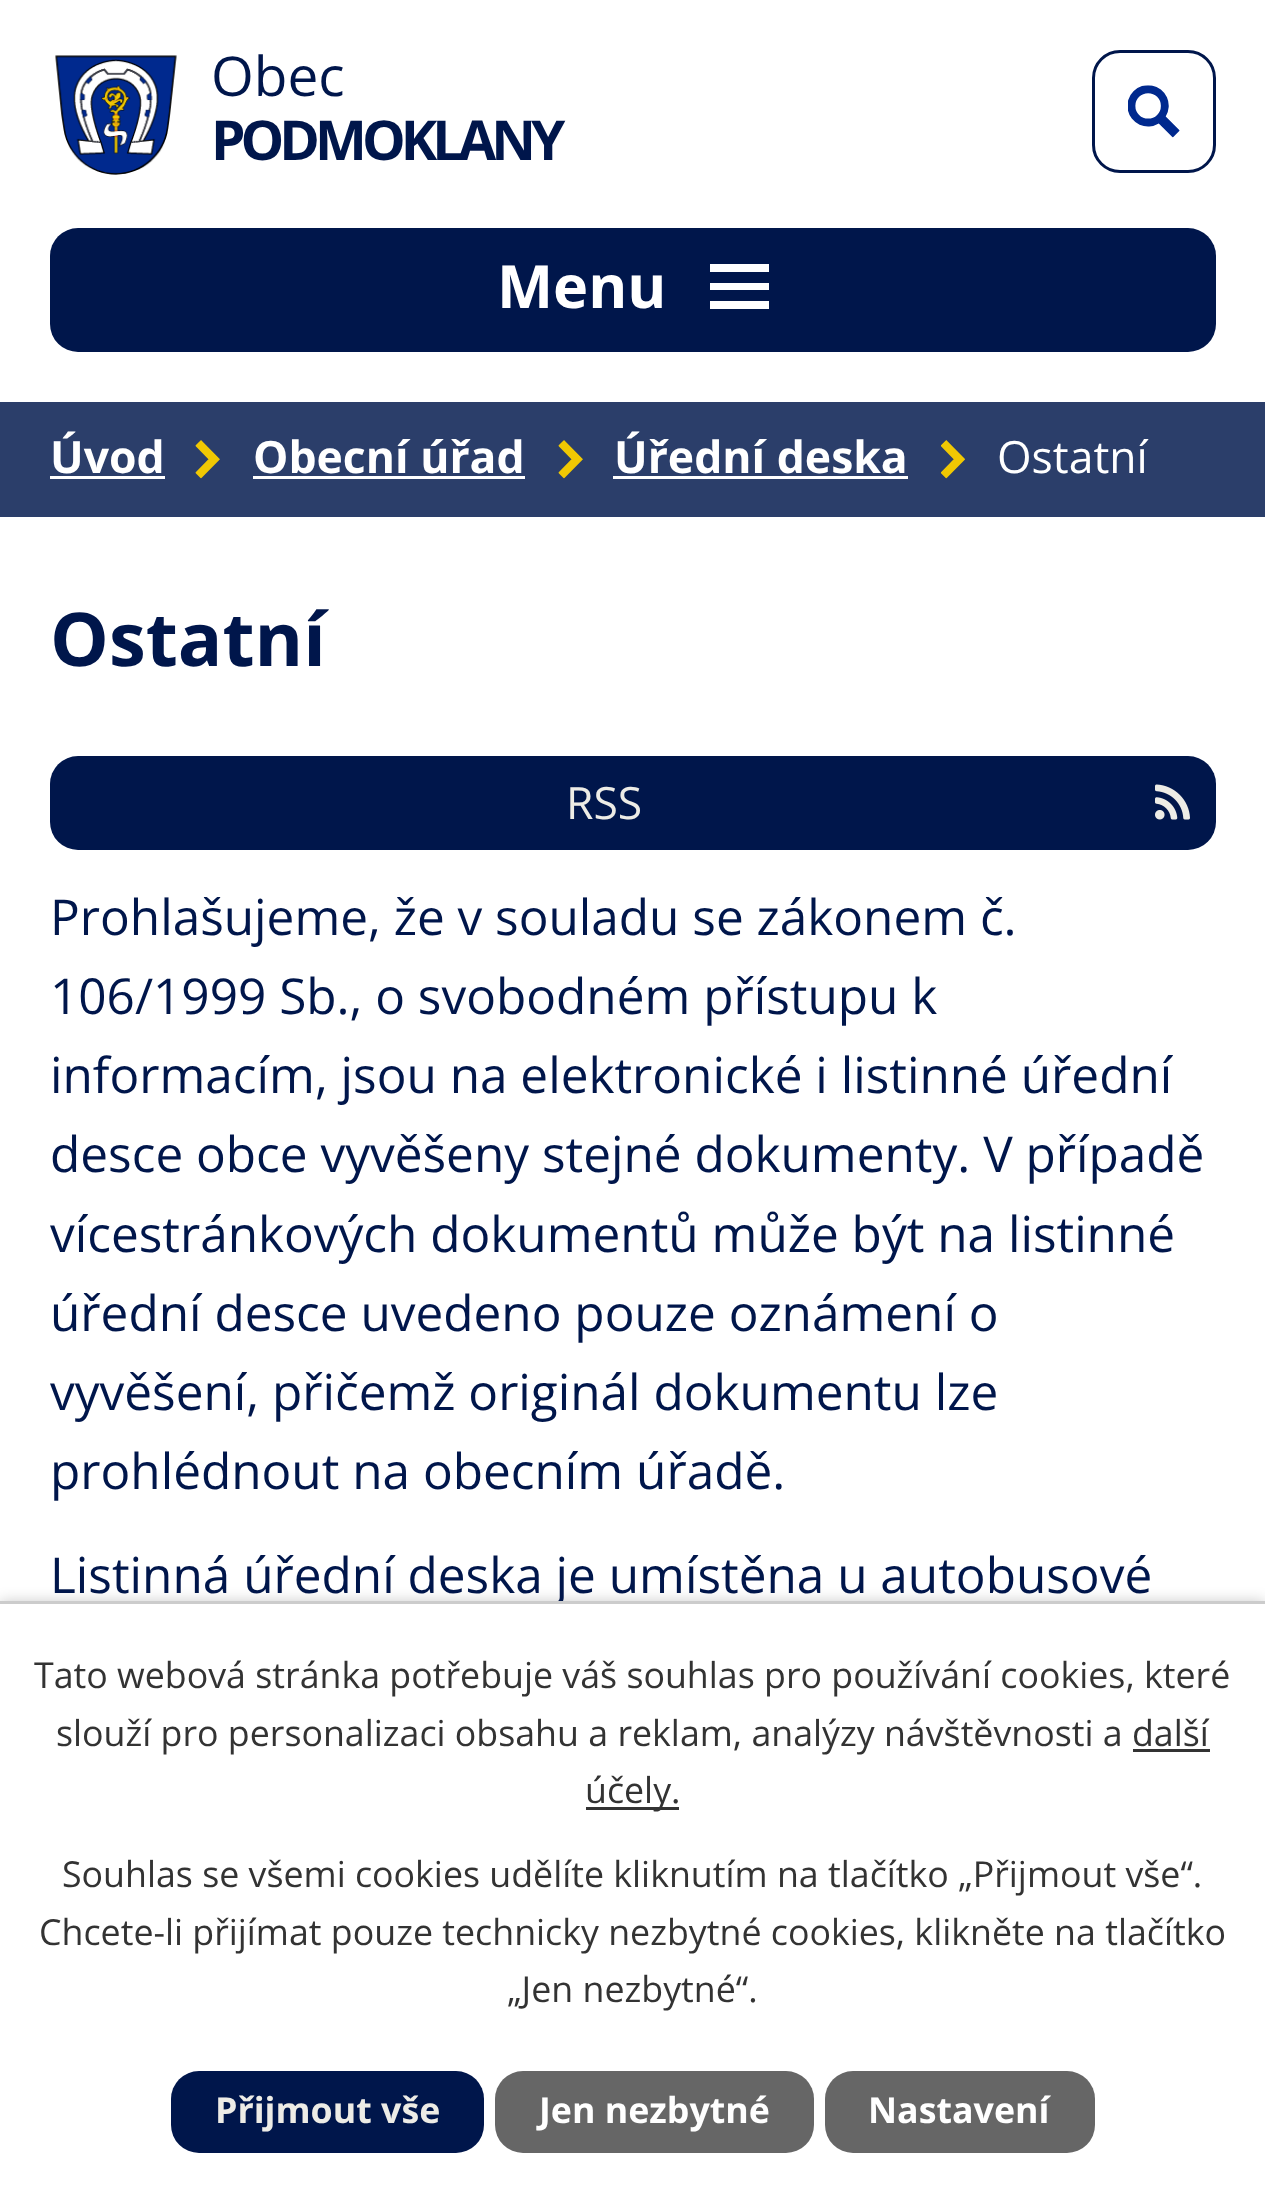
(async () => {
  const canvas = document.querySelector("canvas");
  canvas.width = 1265;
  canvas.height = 2194;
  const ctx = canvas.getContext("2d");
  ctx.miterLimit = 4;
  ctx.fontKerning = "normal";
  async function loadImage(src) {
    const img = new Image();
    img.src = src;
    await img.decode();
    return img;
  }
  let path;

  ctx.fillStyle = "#ffffff";
  ctx.fillRect(0, 0, 1265, 2194);
  ctx.drawImage(await loadImage("img/1.png"), 55, 55, 122, 120);
  ctx.beginPath();
  ctx.roundRect(1093.5, 51.5, 121, 120, 26.5);
  ctx.strokeStyle = "#00164b";
  ctx.lineWidth = 3;
  ctx.stroke();
  ctx.drawImage(await loadImage("img/2.png"), 1128, 85, 52, 53);
  ctx.fillStyle = "#00164b";
  ctx.beginPath();
  ctx.roundRect(50, 228, 1166, 124, 28);
  ctx.fill();
  ctx.fillStyle = "#ffffff";
  path = new Path2D("M710 309V301H769V309ZM710 264H769V272H710ZM710 290V283H769V290Z");
  ctx.fill(path);
  ctx.fillStyle = "#2b3e6a";
  ctx.fillRect(0, 402, 1265, 115);
  ctx.fillStyle = "#ffffff";
  ctx.fillRect(50, 476, 115, 3);
  ctx.drawImage(await loadImage("img/3.png"), 195, 440, 25, 39);
  ctx.fillRect(253, 476, 272, 3);
  ctx.drawImage(await loadImage("img/3.png"), 558, 440, 25, 39);
  ctx.fillRect(613, 476, 295, 3);
  ctx.drawImage(await loadImage("img/4.png"), 941, 440, 24, 39);
  ctx.fillStyle = "#00164b";
  ctx.beginPath();
  ctx.roundRect(50, 756, 1166, 94, 28);
  ctx.fill();
  ctx.drawImage(await loadImage("img/5.png"), 1155, 784, 35, 36);
  ctx.fillStyle = "rgba(0, 0, 0, 0.2)";
  ctx.filter = "blur(7px)";
  ctx.beginPath();
  ctx.rect(0, 1601, 1265, 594);
  ctx.fill();
  ctx.filter = "none";
  ctx.font = "55px Open Sans";
  ctx.fillStyle = "#00164b";
  ctx.fillText("Obec", 211, 96);
  ctx.letterSpacing = "-5px";
  ctx.font = "bold 55px Open Sans";
  ctx.fillText("PODMOKLANY", 211, 160);
  ctx.letterSpacing = "0px";
  ctx.font = "bold 59.5px Open Sans";
  ctx.fillStyle = "#ffffff";
  ctx.fillText("Menu", 497, 308);
  ctx.font = "bold 44.5px Open Sans";
  for (const [text, x, y] of [
    ["Úvod", 50, 473],
    ["Obecní úřad", 253, 473],
    ["Úřední deska", 614, 473],
  ]) {
    ctx.fillText(text, x, y);
  }
  ctx.font = "44.5px Open Sans";
  ctx.fillText("Ostatní", 997, 473);
  ctx.font = "bold 74px Open Sans";
  ctx.fillStyle = "#00164b";
  ctx.fillText("Ostatní", 50, 666);
  ctx.font = "44.5px Open Sans";
  ctx.fillStyle = "#edece6";
  ctx.fillText("RSS", 566, 819);
  ctx.font = "49.5px Open Sans";
  ctx.fillStyle = "#00164b";
  for (const [text, x, y] of [
    ["Prohlašujeme, že v souladu se zákonem č.", 50, 935],
    ["106/1999 Sb., o svobodném přístupu k", 50, 1014],
    ["informacím, jsou na elektronické i listinné úřední", 50, 1093],
    ["desce obce vyvěšeny stejné dokumenty. V případě", 50, 1172],
    ["vícestránkových dokumentů může být na listinné", 50, 1252],
    ["úřední desce uvedeno pouze oznámení o", 50, 1331],
    ["vyvěšení, přičemž originál dokumentu lze", 50, 1410],
    ["prohlédnout na obecním úřadě.", 50, 1489],
    ["Listinná úřední deska je umístěna u autobusové", 50, 1593],
  ]) {
    ctx.fillText(text, x, y);
  }
  ctx.fillStyle = "#ffffff";
  ctx.fillRect(0, 1604, 1265, 590);
  ctx.fillStyle = "#cccccc";
  ctx.fillRect(0, 1601, 1265, 3);
  ctx.font = "35.75px Open Sans";
  ctx.fillStyle = "#333333";
  ctx.fillText("Tato webová stránka potřebuje váš souhlas pro používání cookies, které", 34, 1688);
  ctx.fillText("slouží pro personalizaci obsahu a reklam, analýzy návštěvnosti a další", 56, 1746);
  ctx.fillRect(1133, 1749, 77, 3);
  ctx.fillRect(586, 1807, 93, 3);
  for (const [text, x, y] of [
    ["účely.", 585, 1803],
    ["Souhlas se všemi cookies udělíte kliknutím na tlačítko „Přijmout vše“.", 62, 1887],
    ["Chcete-li přijímat pouze technicky nezbytné cookies, klikněte na tlačítko", 39, 1945],
    ["„Jen nezbytné“.", 507, 2002],
  ]) {
    ctx.fillText(text, x, y);
  }
  ctx.fillStyle = "#00164b";
  ctx.beginPath();
  ctx.roundRect(171, 2071, 313, 82, 28);
  ctx.fill();
  ctx.font = "bold 35.75px Open Sans";
  ctx.fillStyle = "#edece6";
  ctx.fillText("Přijmout vše", 215, 2123);
  ctx.fillStyle = "#666666";
  ctx.beginPath();
  ctx.roundRect(495, 2071, 319, 82, 28);
  ctx.fill();
  ctx.fillStyle = "#ffffff";
  ctx.fillText("Jen nezbytné", 539, 2123);
  ctx.fillStyle = "#666666";
  ctx.beginPath();
  ctx.roundRect(825, 2071, 270, 82, 28);
  ctx.fill();
  ctx.fillStyle = "#ffffff";
  ctx.fillText("Nastavení", 868, 2123);
})();
